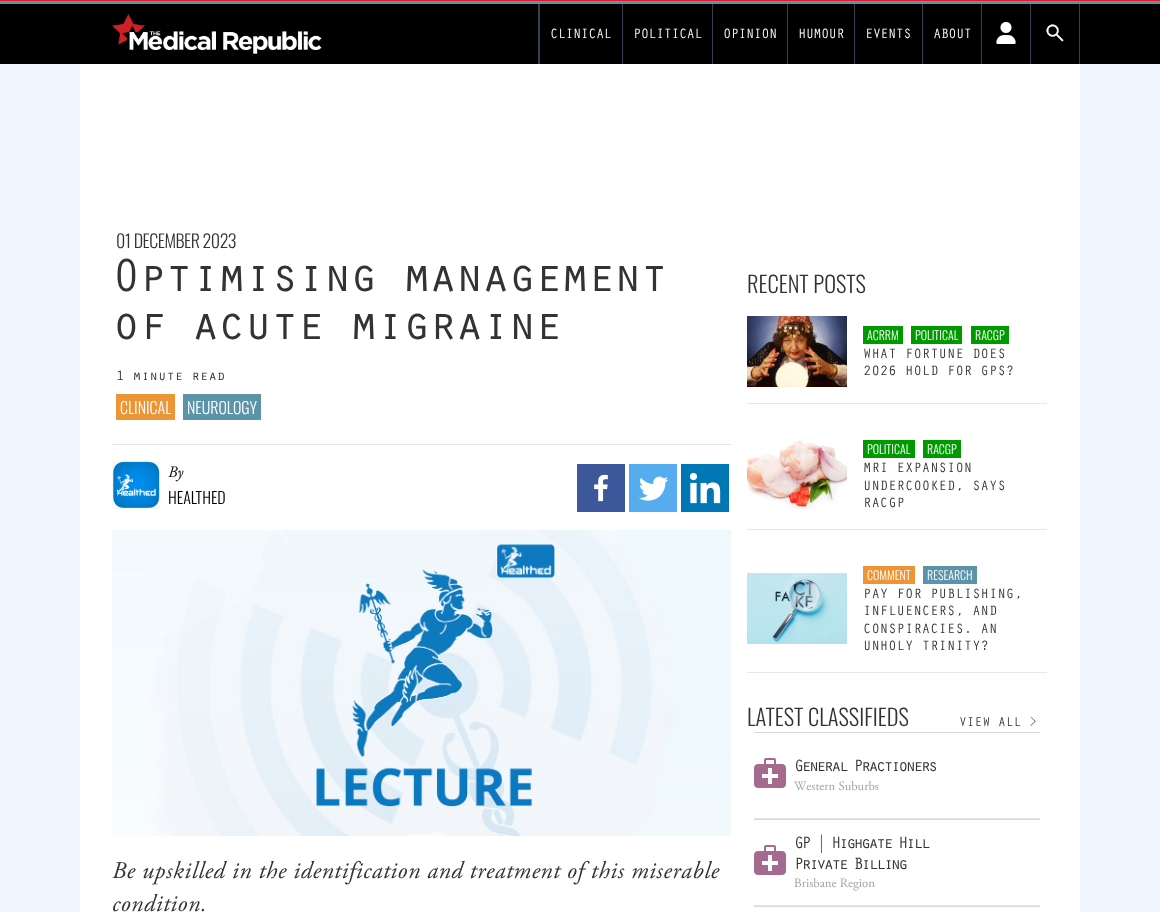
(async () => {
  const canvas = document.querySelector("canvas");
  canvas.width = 1160;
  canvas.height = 912;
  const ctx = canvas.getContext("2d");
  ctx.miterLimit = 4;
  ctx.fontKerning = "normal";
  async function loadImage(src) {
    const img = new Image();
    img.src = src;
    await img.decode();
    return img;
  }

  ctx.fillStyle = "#eff6ff";
  ctx.fillRect(0, 0, 1160, 912);
  for (const [x, y, w, h, color] of [
    [0, 4, 1160, 60, "#000000"],
    [0, 0, 1160, 1, "#e41d24"],
    [0, 1, 1160, 3, "#5b94a8"],
  ]) {
    ctx.fillStyle = color;
    ctx.fillRect(x, y, w, h);
  }
  ctx.drawImage(await loadImage("img/1.png"), 112, 14, 210, 40);
  for (const [x, y, w, h, color] of [
    [1079, 4, 1, 60, "#334155"],
    [538, 4, 2, 60, "#334155"],
    [622, 4, 1, 60, "#334155"],
    [712, 4, 1, 60, "#334155"],
    [787, 4, 1, 60, "#334155"],
    [854, 4, 1, 60, "#334155"],
    [922, 4, 1, 60, "#334155"],
    [981, 4, 1, 60, "#334155"],
  ]) {
    ctx.fillStyle = color;
    ctx.fillRect(x, y, w, h);
  }
  ctx.drawImage(await loadImage("img/2.png"), 996, 22, 20, 22);
  ctx.fillRect(1030, 4, 1, 60);
  ctx.drawImage(await loadImage("img/3.png"), 1046, 24, 18, 18);
  for (const [x, y, w, h, color] of [
    [80, 64, 1000, 848, "#ffffff"],
    [116, 394, 59, 26, "#ec9436"],
    [183, 394, 78, 26, "#5b94a8"],
    [112, 444, 619, 1, "#e5e7eb"],
  ]) {
    ctx.fillStyle = color;
    ctx.fillRect(x, y, w, h);
  }
  ctx.drawImage(await loadImage("img/4.png"), 112, 461, 48, 48);
  ctx.fillStyle = "#3c589a";
  ctx.fillRect(577, 464, 48, 48);
  ctx.drawImage(await loadImage("img/5.png"), 594, 474, 14, 28);
  ctx.fillStyle = "#55acee";
  ctx.fillRect(629, 464, 48, 48);
  ctx.drawImage(await loadImage("img/6.png"), 639, 476, 30, 25);
  ctx.fillStyle = "#0077b5";
  ctx.fillRect(681, 464, 48, 48);
  ctx.drawImage(await loadImage("img/7.png"), 689, 472, 32, 32);
  ctx.drawImage(await loadImage("img/8.png"), 112, 530, 619, 306);
  ctx.drawImage(await loadImage("img/9.png"), 747, 316, 100, 71);
  for (const [x, y, w, h, color] of [
    [863, 326, 40, 18, "#009900"],
    [911, 326, 51, 18, "#009900"],
    [971, 326, 38, 18, "#009900"],
    [747, 403, 300, 1, "#e5e7eb"],
  ]) {
    ctx.fillStyle = color;
    ctx.fillRect(x, y, w, h);
  }
  ctx.drawImage(await loadImage("img/10.png"), 747, 440, 100, 70);
  for (const [x, y, w, h, color] of [
    [863, 440, 52, 18, "#009900"],
    [923, 440, 38, 18, "#009900"],
    [747, 529, 300, 1, "#e5e7eb"],
  ]) {
    ctx.fillStyle = color;
    ctx.fillRect(x, y, w, h);
  }
  ctx.drawImage(await loadImage("img/11.png"), 747, 573, 100, 71);
  for (const [x, y, w, h, color] of [
    [863, 566, 52, 18, "#ec9436"],
    [923, 566, 54, 18, "#5b94a8"],
    [747, 672, 300, 1, "#e5e7eb"],
    [754, 732, 286, 1, "#d8d8d8"],
    [754, 818, 286, 1, "#e5e5e5"],
  ]) {
    ctx.fillStyle = color;
    ctx.fillRect(x, y, w, h);
  }
  ctx.drawImage(await loadImage("img/12.png"), 754, 758, 32, 30);
  ctx.fillStyle = "#d8d8d8";
  ctx.fillRect(754, 819, 286, 1);
  ctx.fillStyle = "#e5e5e5";
  ctx.fillRect(754, 905, 286, 1);
  ctx.drawImage(await loadImage("img/12.png"), 754, 845, 32, 30);
  ctx.fillStyle = "#d8d8d8";
  ctx.fillRect(754, 906, 286, 1);
  ctx.letterSpacing = "-0.75px";
  ctx.font = "500 14px 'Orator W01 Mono'";
  ctx.fillStyle = "#f9fafb";
  for (const [text, x, y] of [
    ["CLINICAL", 550, 38],
    ["POLITICAL", 633, 38],
    ["OPINION", 723, 38],
    ["HUMOUR", 798, 38],
    ["EVENTS", 865, 38],
    ["ABOUT", 933, 38],
  ]) {
    ctx.fillText(text, x, y);
  }
  ctx.letterSpacing = "-0.5px";
  ctx.font = "300 18px Oswald";
  ctx.fillStyle = "#333333";
  ctx.fillText("01 DECEMBER 2023", 116, 248);
  ctx.letterSpacing = "-2.4px";
  ctx.font = "500 48px 'Orator W01 Mono'";
  ctx.fillText("Optimising management", 112, 291);
  ctx.fillText("of acute migraine", 112, 339);
  ctx.letterSpacing = "0px";
  ctx.font = "500 14px 'Orator W01 Mono'";
  ctx.fillText("1 minute read", 116, 380);
  ctx.font = "300 16px Oswald";
  ctx.fillStyle = "#ffffff";
  ctx.fillText("CLINICAL", 120, 414);
  ctx.fillText("NEUROLOGY", 187, 414);
  ctx.font = "italic 16px Adobe Garamond";
  ctx.fillStyle = "#000000";
  ctx.fillText("By", 168, 477);
  ctx.font = "300 16px Oswald";
  ctx.fillText("HEALTHED", 168, 504);
  ctx.letterSpacing = "0.6px";
  ctx.font = "italic 24px Adobe Garamond";
  ctx.fillStyle = "#333333";
  ctx.fillText("Be upskilled in the identification and treatment of this miserable", 112, 878);
  ctx.fillText("condition.", 112, 911);
  ctx.letterSpacing = "0px";
  ctx.font = "300 22.5px Oswald";
  ctx.fillText("RECENT POSTS", 747, 293);
  ctx.font = "300 12px Oswald";
  ctx.fillStyle = "#ffffff";
  for (const [text, x, y] of [
    ["ACRRM", 867, 340],
    ["POLITICAL", 915, 340],
    ["RACGP", 975, 340],
  ]) {
    ctx.fillText(text, x, y);
  }
  ctx.font = "500 14px 'Orator W01 Mono'";
  ctx.fillStyle = "#333333";
  ctx.fillText("WHAT FORTUNE DOES", 863, 358);
  ctx.fillText("2026 HOLD FOR GPS?", 863, 375);
  ctx.font = "300 12px Oswald";
  ctx.fillStyle = "#ffffff";
  ctx.fillText("POLITICAL", 867, 454);
  ctx.fillText("RACGP", 927, 454);
  ctx.font = "500 14px 'Orator W01 Mono'";
  ctx.fillStyle = "#333333";
  for (const [text, x, y] of [
    ["MRI EXPANSION", 863, 472],
    ["UNDERCOOKED, SAYS", 863, 490],
    ["RACGP", 863, 507],
  ]) {
    ctx.fillText(text, x, y);
  }
  ctx.font = "300 12px Oswald";
  ctx.fillStyle = "#ffffff";
  ctx.fillText("COMMENT", 867, 580);
  ctx.fillText("RESEARCH", 927, 580);
  ctx.font = "500 14px 'Orator W01 Mono'";
  ctx.fillStyle = "#333333";
  for (const [text, x, y] of [
    ["PAY FOR PUBLISHING,", 863, 598],
    ["INFLUENCERS, AND", 863, 615],
    ["CONSPIRACIES. AN", 863, 633],
    ["UNHOLY TRINITY?", 863, 650],
  ]) {
    ctx.fillText(text, x, y);
  }
  ctx.font = "300 22.5px Oswald";
  ctx.fillText("LATEST CLASSIFIEDS", 747, 726);
  ctx.font = "500 13px 'Orator W01 Mono'";
  ctx.fillText("VIEW ALL >", 959, 726);
  ctx.letterSpacing = "-2.75px";
  ctx.font = "500 17px 'Orator W01 Mono'";
  ctx.fillText("General Practioners", 794, 771);
  ctx.letterSpacing = "0px";
  ctx.font = "12.75px Adobe Garamond";
  ctx.fillStyle = "#a4a2a2";
  ctx.fillText("Western Suburbs", 794, 790);
  ctx.letterSpacing = "-2.75px";
  ctx.font = "500 17px 'Orator W01 Mono'";
  ctx.fillStyle = "#333333";
  ctx.fillText("GP | Highgate Hill", 794, 848);
  ctx.fillText("Private Billing", 794, 869);
  ctx.letterSpacing = "0px";
  ctx.font = "12.75px Adobe Garamond";
  ctx.fillStyle = "#a4a2a2";
  ctx.fillText("Brisbane Region", 794, 887);
})();
